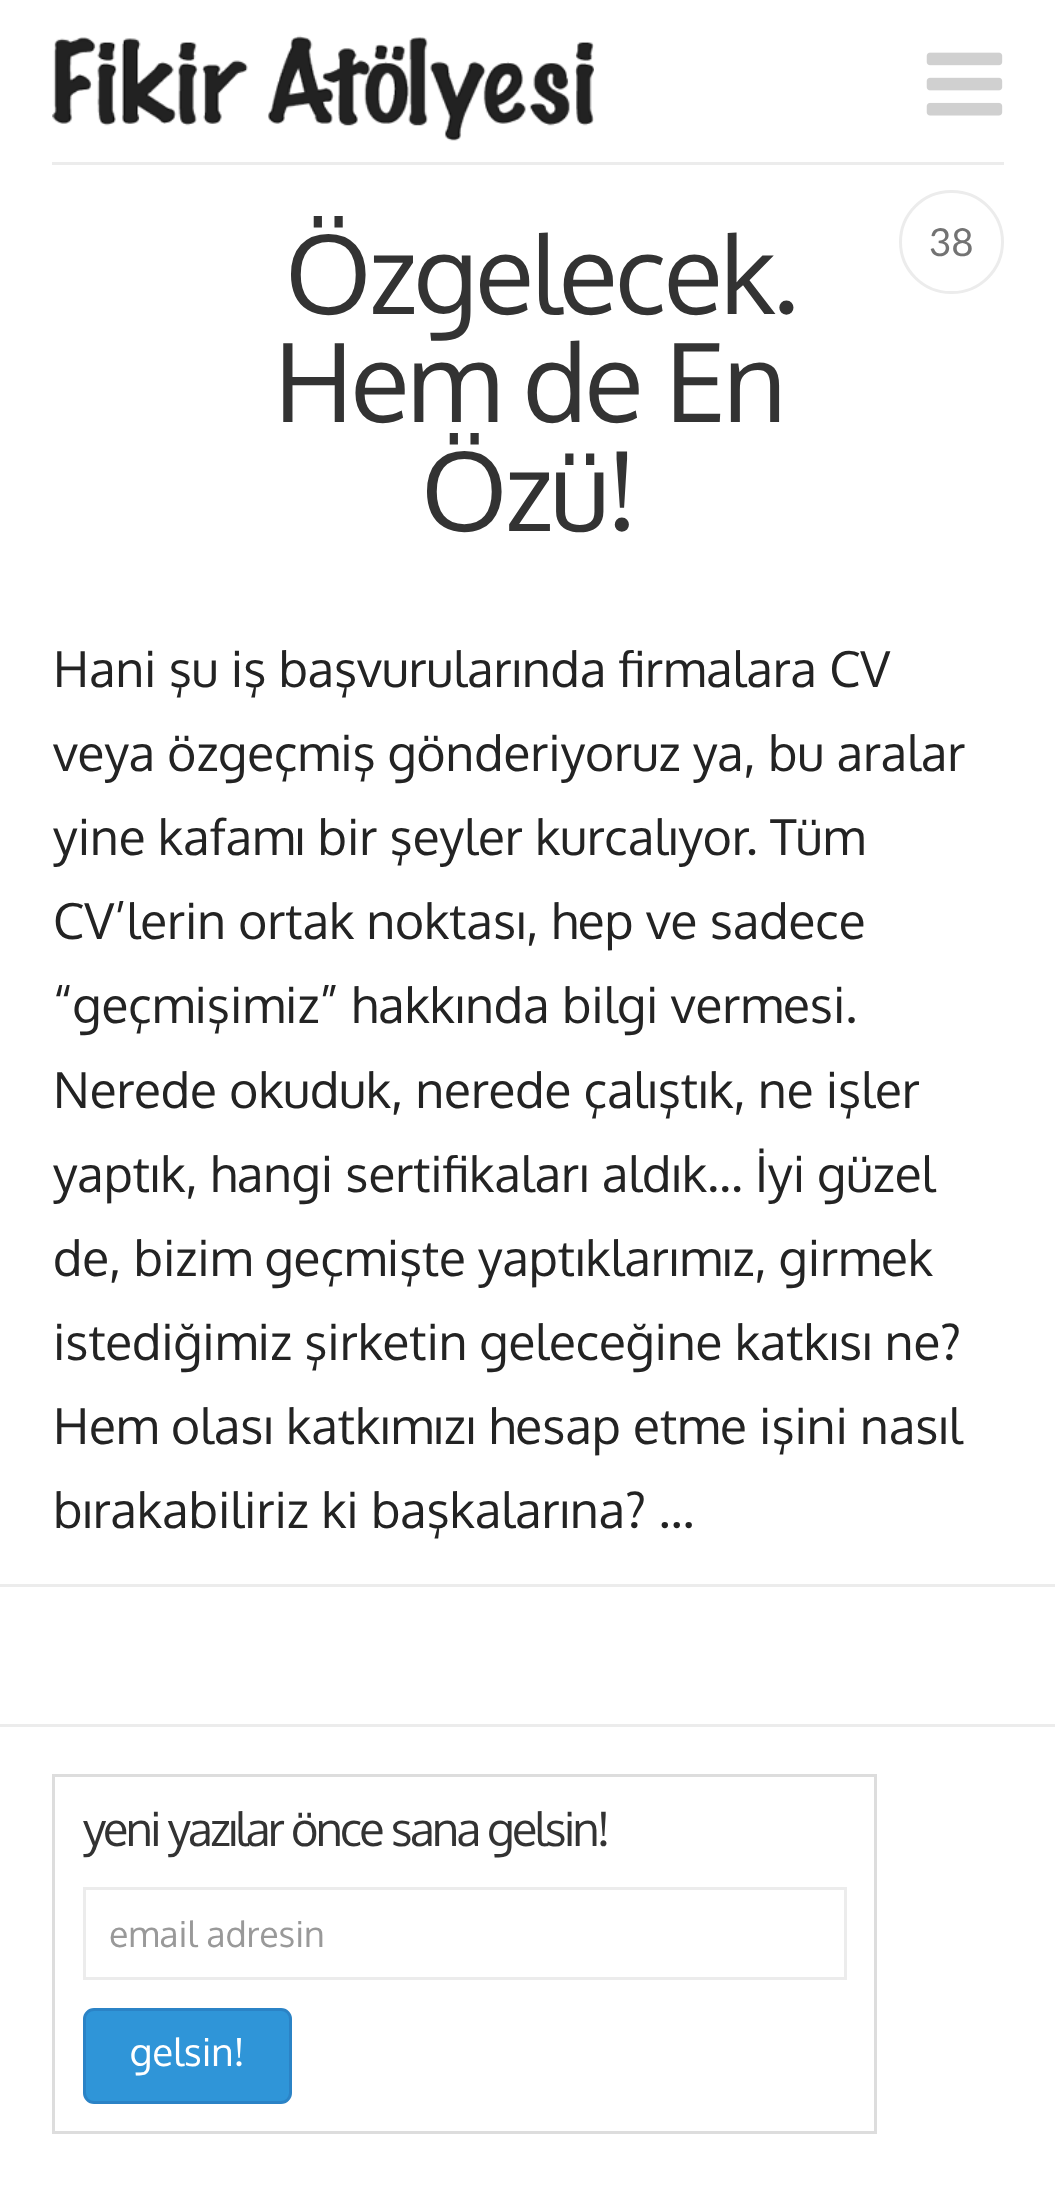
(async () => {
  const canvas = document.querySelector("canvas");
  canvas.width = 1055;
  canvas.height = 2203;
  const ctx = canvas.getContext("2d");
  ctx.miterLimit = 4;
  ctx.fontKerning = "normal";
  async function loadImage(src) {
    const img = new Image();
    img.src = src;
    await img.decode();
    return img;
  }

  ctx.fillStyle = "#ffffff";
  ctx.fillRect(0, 0, 1055, 2203);
  ctx.fillStyle = "#ececec";
  ctx.fillRect(52, 162, 952, 3);
  ctx.drawImage(await loadImage("img/1.png"), 52, 35, 542, 106);
  ctx.drawImage(await loadImage("img/2.png"), 926, 52, 77, 64);
  ctx.fillRect(0, 1584, 1055, 3);
  ctx.beginPath();
  ctx.roundRect(900.5, 191.5, 102, 101, 50.5);
  ctx.strokeStyle = "#ececec";
  ctx.lineWidth = 3;
  ctx.stroke();
  ctx.fillRect(0, 1724, 1055, 3);
  ctx.strokeStyle = "#dddddd";
  ctx.strokeRect(53.5, 1775.5, 822, 357);
  ctx.strokeStyle = "#ececec";
  ctx.strokeRect(84.5, 1888.5, 761, 90);
  ctx.fillStyle = "#2f95d8";
  ctx.beginPath();
  ctx.roundRect(84.5, 2009.5, 206, 93, 9.5);
  ctx.fill();
  ctx.strokeStyle = "#2b83c6";
  ctx.stroke();
  ctx.letterSpacing = "-2.75px";
  ctx.font = "109px Oxygen";
  ctx.fillStyle = "#333333";
  for (const [text, x, y] of [
    ["Özgelecek.", 285, 314],
    ["Hem de En", 274, 422],
    ["Özü!", 421, 531],
  ]) {
    ctx.fillText(text, x, y);
  }
  ctx.letterSpacing = "0px";
  ctx.font = "49.5px Oxygen";
  ctx.fillStyle = "#232323";
  for (const [text, x, y] of [
    ["Hani şu iş başvurularında firmalara CV", 53, 687],
    ["veya özgeçmiş gönderiyoruz ya, bu aralar", 53, 771],
    ["yine kafamı bir şeyler kurcalıyor. Tüm", 53, 855],
    ["CV’lerin ortak noktası, hep ve sadece", 53, 939],
    ["“geçmişimiz” hakkında bilgi vermesi.", 53, 1023],
    ["Nerede okuduk, nerede çalıştık, ne işler", 53, 1108],
    ["yaptık, hangi sertifikaları aldık… İyi güzel", 53, 1192],
    ["de, bizim geçmişte yaptıklarımız, girmek", 53, 1276],
    ["istediğimiz şirketin geleceğine katkısı ne?", 53, 1360],
    ["Hem olası katkımızı hesap etme işini nasıl", 53, 1444],
    ["bırakabiliriz ki başkalarına? …", 53, 1528],
  ]) {
    ctx.fillText(text, x, y);
  }
  ctx.font = "38.5px Lato";
  ctx.fillStyle = "#737373";
  ctx.fillText("38", 929, 256);
  ctx.letterSpacing = "-2.75px";
  ctx.font = "46.75px Oxygen";
  ctx.fillStyle = "#333333";
  ctx.fillText("yeni yazılar önce sana gelsin!", 83, 1846);
  ctx.letterSpacing = "0px";
  ctx.font = "35.75px Oxygen";
  ctx.fillStyle = "#999999";
  ctx.fillText("email adresin", 109, 1947);
  ctx.font = "38.5px Oxygen";
  ctx.fillStyle = "#ffffff";
  ctx.fillText("gelsin!", 130, 2066);
})();
